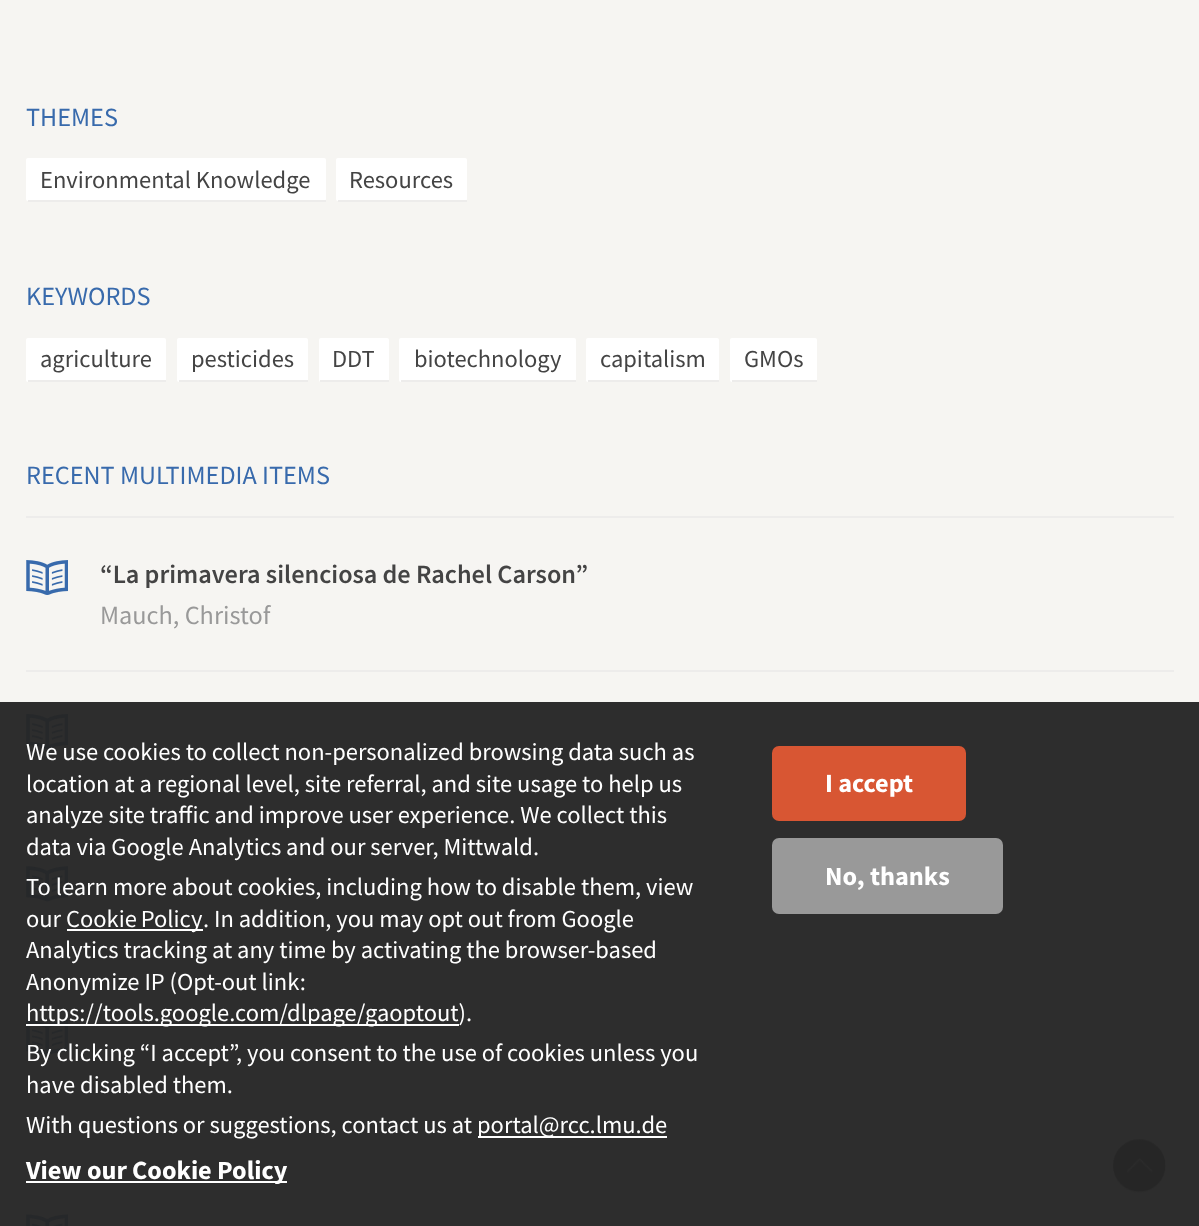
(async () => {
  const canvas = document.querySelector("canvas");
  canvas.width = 1199;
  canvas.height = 1226;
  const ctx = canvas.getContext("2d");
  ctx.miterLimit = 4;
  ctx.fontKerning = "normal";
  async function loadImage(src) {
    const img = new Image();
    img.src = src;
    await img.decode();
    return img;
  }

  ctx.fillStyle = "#f6f5f2";
  ctx.fillRect(0, 0, 1199, 1226);
  ctx.fillStyle = "#2d2d2d";
  ctx.fillRect(0, 702, 1199, 524);
  ctx.fillStyle = "#ffffff";
  ctx.beginPath();
  ctx.roundRect(26, 158, 300, 43, 2);
  ctx.fill();
  ctx.fillStyle = "#edeceb";
  ctx.fillRect(28, 200, 298, 2);
  ctx.fillStyle = "#ffffff";
  ctx.beginPath();
  ctx.roundRect(336, 158, 131, 43, 2);
  ctx.fill();
  ctx.fillStyle = "#edeceb";
  ctx.fillRect(338, 200, 129, 2);
  ctx.fillStyle = "#ffffff";
  ctx.beginPath();
  ctx.roundRect(26, 338, 140, 44, 2);
  ctx.fill();
  ctx.fillStyle = "#edeceb";
  ctx.fillRect(28, 380, 138, 2);
  ctx.fillStyle = "#ffffff";
  ctx.beginPath();
  ctx.roundRect(177, 338, 131, 44, 2);
  ctx.fill();
  ctx.fillStyle = "#edeceb";
  ctx.fillRect(179, 380, 129, 2);
  ctx.fillStyle = "#ffffff";
  ctx.beginPath();
  ctx.roundRect(319, 338, 70, 44, 2);
  ctx.fill();
  ctx.fillStyle = "#edeceb";
  ctx.fillRect(320, 380, 69, 2);
  ctx.fillStyle = "#ffffff";
  ctx.beginPath();
  ctx.roundRect(399, 338, 177, 44, 2);
  ctx.fill();
  ctx.fillStyle = "#edeceb";
  ctx.fillRect(401, 380, 175, 2);
  ctx.fillStyle = "#ffffff";
  ctx.beginPath();
  ctx.roundRect(586, 338, 133, 44, 2);
  ctx.fill();
  ctx.fillStyle = "#edeceb";
  ctx.fillRect(588, 380, 131, 2);
  ctx.fillStyle = "#ffffff";
  ctx.beginPath();
  ctx.roundRect(730, 338, 87, 44, 2);
  ctx.fill();
  ctx.fillStyle = "#edeceb";
  ctx.fillRect(732, 380, 85, 2);
  ctx.drawImage(await loadImage("img/1.png"), 26, 560, 42, 35);
  ctx.fillRect(26, 516, 1148, 2);
  ctx.fillRect(26, 670, 1148, 2);
  ctx.drawImage(await loadImage("img/2.png"), 26, 714, 42, 35);
  ctx.drawImage(await loadImage("img/3.png"), 26, 866, 42, 36);
  ctx.drawImage(await loadImage("img/3.png"), 26, 1020, 42, 36);
  ctx.drawImage(await loadImage("img/4.png"), 26, 1214, 42, 12);
  for (const [x, y, w, h, color] of [
    [67, 929, 136, 2, "#ffffff"],
    [26, 1024, 433, 2, "#ffffff"],
    [478, 1136, 189, 2, "#ffffff"],
    [26, 1181, 261, 2, "#ffffff"],
  ]) {
    ctx.fillStyle = color;
    ctx.fillRect(x, y, w, h);
  }
  ctx.fillStyle = "#d85633";
  ctx.beginPath();
  ctx.roundRect(772, 746, 194, 75, 7);
  ctx.fill();
  ctx.fillStyle = "#999999";
  ctx.beginPath();
  ctx.roundRect(772, 838, 231, 76, 7);
  ctx.fill();
  ctx.drawImage(await loadImage("img/5.png"), 1113, 1139, 53, 54);
  ctx.font = "26.25px Source Sans Pro";
  ctx.fillStyle = "#386aac";
  ctx.fillText("THEMES", 26, 126);
  ctx.font = "24.5px Source Sans Pro";
  ctx.fillStyle = "#444444";
  ctx.fillText("Environmental Knowledge", 40, 188);
  ctx.fillText("Resources", 349, 188);
  ctx.font = "26.25px Source Sans Pro";
  ctx.fillStyle = "#386aac";
  ctx.fillText("KEYWORDS", 26, 305);
  ctx.font = "24.5px Source Sans Pro";
  ctx.fillStyle = "#444444";
  for (const [text, x, y] of [
    ["agriculture", 40, 367],
    ["pesticides", 191, 367],
    ["DDT", 332, 367],
    ["biotechnology", 414, 367],
    ["capitalism", 600, 367],
    ["GMOs", 744, 367],
  ]) {
    ctx.fillText(text, x, y);
  }
  ctx.font = "26.25px Source Sans Pro";
  ctx.fillStyle = "#386aac";
  ctx.fillText("RECENT MULTIMEDIA ITEMS", 26, 484);
  ctx.font = "600 26.25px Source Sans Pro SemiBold";
  ctx.fillStyle = "#444444";
  ctx.fillText("“La primavera silenciosa de Rachel Carson”", 100, 583);
  ctx.font = "26.25px Source Sans Pro";
  ctx.fillStyle = "#999999";
  ctx.fillText("Mauch, Christof", 100, 624);
  ctx.font = "24.5px Source Sans Pro";
  ctx.fillStyle = "#ffffff";
  for (const [text, x, y] of [
    ["We use cookies to collect non-personalized browsing data such as", 26, 760],
    ["location at a regional level, site referral, and site usage to help us", 26, 792],
    ["analyze site traffic and improve user experience. We collect this", 26, 823],
    ["data via Google Analytics and our server, Mittwald.", 26, 855],
    ["To learn more about cookies, including how to disable them, view", 26, 895],
    ["our", 26, 927],
  ]) {
    ctx.fillText(text, x, y);
  }
  ctx.wordSpacing = "-1px";
  ctx.fillText("Cookie Policy", 66, 927);
  ctx.wordSpacing = "0px";
  for (const [text, x, y] of [
    [". In addition, you may opt out from Google", 203, 927],
    ["Analytics tracking at any time by activating the browser-based", 26, 958],
    ["Anonymize IP (Opt-out link:", 26, 990],
    ["https://tools.google.com/dlpage/gaoptout).", 26, 1021],
    ["By clicking “I accept”, you consent to the use of cookies unless you", 26, 1061],
    ["have disabled them.", 26, 1093],
    ["With questions or suggestions, contact us at", 26, 1133],
    ["portal@rcc.lmu.de", 477, 1133],
  ]) {
    ctx.fillText(text, x, y);
  }
  ctx.font = "bold 26.25px Source Sans Pro";
  for (const [text, x, y] of [
    ["View our Cookie Policy", 26, 1179],
    ["I accept", 825, 792],
    ["No, thanks", 825, 885],
  ]) {
    ctx.fillText(text, x, y);
  }
})();
